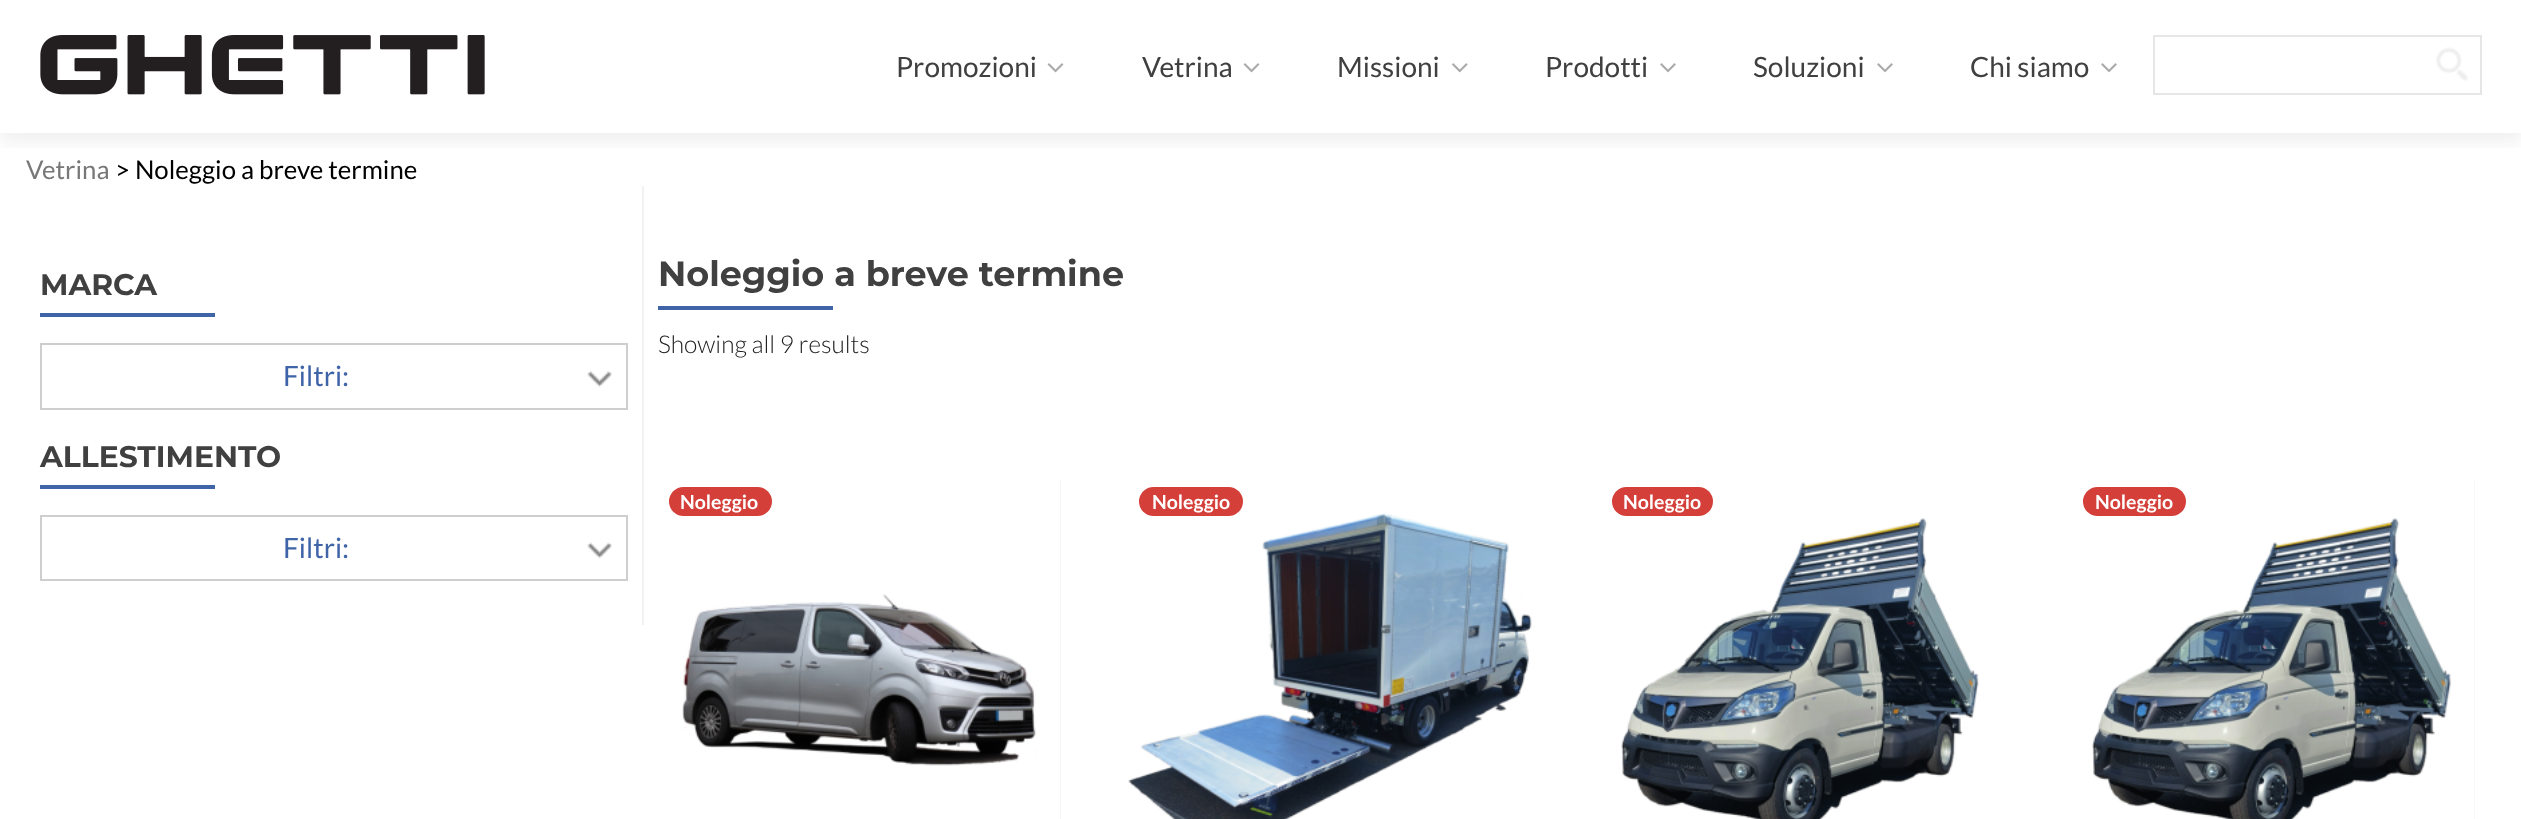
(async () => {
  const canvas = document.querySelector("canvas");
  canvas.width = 2521;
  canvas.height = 819;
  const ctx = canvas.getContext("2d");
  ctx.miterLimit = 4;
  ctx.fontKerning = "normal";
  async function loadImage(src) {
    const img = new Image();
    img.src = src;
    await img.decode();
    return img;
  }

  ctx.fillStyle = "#ffffff";
  ctx.fillRect(0, 0, 2521, 819);
  ctx.save();
  ctx.beginPath();
  ctx.rect(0, 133, 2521, 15);
  ctx.clip();
  ctx.fillStyle = "rgba(50, 50, 50, 0.08)";
  ctx.filter = "blur(9.5px)";
  ctx.beginPath();
  ctx.rect(0, 9, 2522, 133);
  ctx.fill();
  ctx.filter = "none";
  ctx.restore();
  ctx.drawImage(await loadImage("img/1.png"), 40, 35, 445, 60);
  ctx.drawImage(await loadImage("img/2.png"), 1047, 63, 17, 10);
  ctx.drawImage(await loadImage("img/2.png"), 1243, 63, 17, 10);
  ctx.drawImage(await loadImage("img/3.png"), 1452, 63, 16, 10);
  ctx.drawImage(await loadImage("img/4.png"), 1660, 63, 16, 10);
  ctx.drawImage(await loadImage("img/4.png"), 1877, 63, 16, 10);
  ctx.drawImage(await loadImage("img/4.png"), 2101, 63, 16, 10);
  ctx.strokeStyle = "#e6e6e6";
  ctx.lineWidth = 2;
  ctx.strokeRect(2154, 36, 327, 58);
  ctx.drawImage(await loadImage("img/5.png"), 2436, 47, 32, 34);
  ctx.fillStyle = "#f2f2f2";
  ctx.fillRect(642, 186, 2, 439);
  ctx.fillStyle = "#3f64a8";
  ctx.fillRect(40, 313, 175, 4);
  ctx.drawImage(await loadImage("img/6.png"), 587, 371, 25, 16);
  ctx.strokeStyle = "#cecece";
  ctx.strokeRect(41, 344, 586, 65);
  ctx.fillRect(40, 485, 175, 4);
  ctx.drawImage(await loadImage("img/7.png"), 587, 542, 25, 17);
  ctx.strokeRect(41, 516, 586, 64);
  ctx.fillRect(658, 306, 175, 4);
  ctx.fillStyle = "#eeeeee";
  ctx.fillRect(1060, 480, 1, 339);
  ctx.drawImage(await loadImage("img/8.png"), 658, 480, 403, 339);
  ctx.fillStyle = "#d43f3a";
  ctx.beginPath();
  ctx.roundRect(669, 487, 103, 29, 14.5);
  ctx.fill();
  ctx.drawImage(await loadImage("img/9.png"), 1128, 480, 404, 339);
  ctx.beginPath();
  ctx.roundRect(1139, 487, 104, 29, 14.5);
  ctx.fill();
  ctx.drawImage(await loadImage("img/10.png"), 1601, 480, 401, 339);
  ctx.beginPath();
  ctx.roundRect(1612, 487, 101, 29, 14.5);
  ctx.fill();
  ctx.fillStyle = "#eeeeee";
  ctx.fillRect(2474, 480, 1, 339);
  ctx.drawImage(await loadImage("img/11.png"), 2072, 480, 403, 339);
  ctx.fillStyle = "#d43f3a";
  ctx.beginPath();
  ctx.roundRect(2083, 487, 103, 29, 14.5);
  ctx.fill();
  ctx.font = "28px Lato";
  ctx.fillStyle = "#404040";
  for (const [text, x, y] of [
    ["Promozioni", 896, 77],
    ["Vetrina", 1142, 77],
    ["Missioni", 1337, 77],
    ["Prodotti", 1545, 77],
    ["Soluzioni", 1753, 77],
    ["Chi siamo", 1970, 77],
  ]) {
    ctx.fillText(text, x, y);
  }
  ctx.font = "25.75px Lato";
  ctx.fillStyle = "#777777";
  ctx.fillText("Vetrina", 26, 179);
  ctx.fillStyle = "#000000";
  ctx.fillText("> Noleggio a breve termine", 115, 179);
  ctx.font = "100 29.75px Montserrat";
  ctx.fillStyle = "#404040";
  ctx.fillText("MARCA", 40, 295);
  ctx.font = "28px Lato";
  ctx.fillStyle = "#3f64a8";
  ctx.fillText("Filtri:", 283, 386);
  ctx.font = "100 29.75px Montserrat";
  ctx.fillStyle = "#404040";
  ctx.fillText("ALLESTIMENTO", 40, 467);
  ctx.font = "28px Lato";
  ctx.fillStyle = "#3f64a8";
  ctx.fillText("Filtri:", 283, 558);
  ctx.font = "100 35px Montserrat";
  ctx.fillStyle = "#404040";
  ctx.fillText("Noleggio a breve termine", 658, 286);
  ctx.font = "300 24.5px Lato";
  ctx.fillStyle = "#202020";
  ctx.fillText("Showing all 9 results", 658, 353);
  ctx.font = "bold 19.5px Lato";
  ctx.fillStyle = "#ffffff";
  for (const [text, x, y] of [
    ["Noleggio", 680, 509],
    ["Noleggio", 1152, 509],
    ["Noleggio", 1623, 509],
    ["Noleggio", 2095, 509],
  ]) {
    ctx.fillText(text, x, y);
  }
})();
